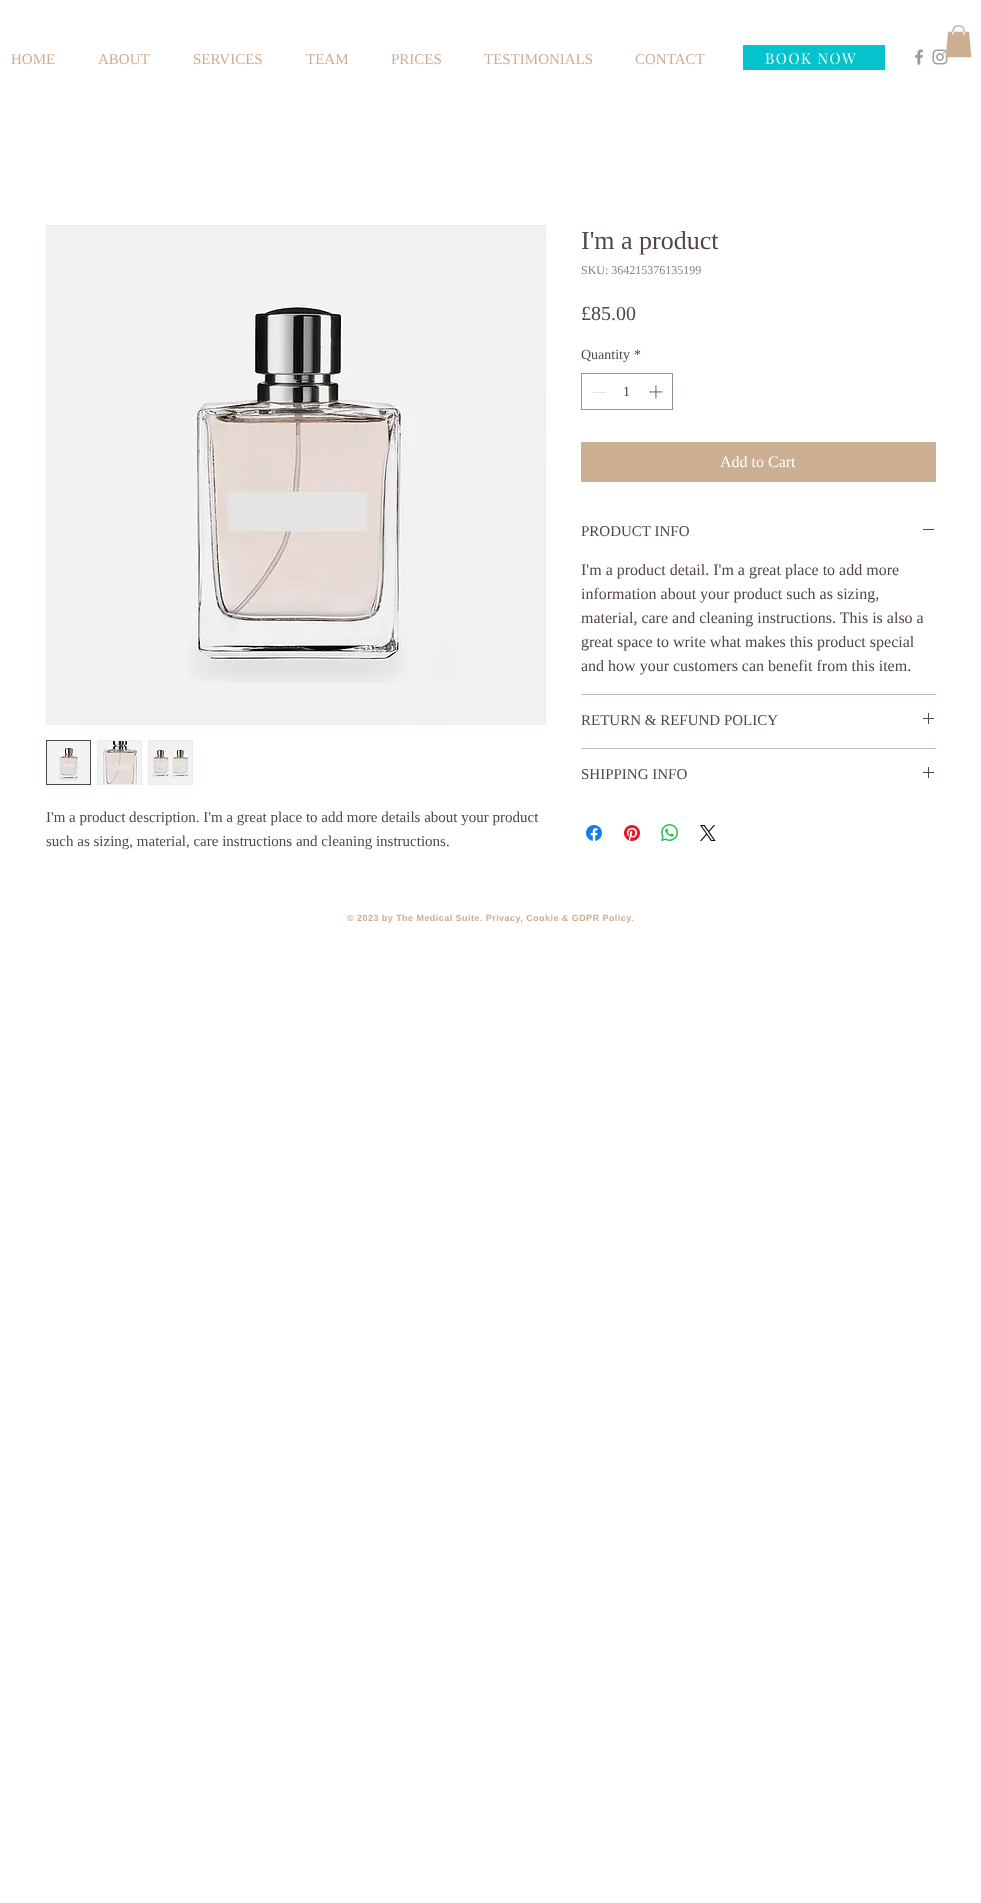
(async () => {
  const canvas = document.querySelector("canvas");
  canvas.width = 981;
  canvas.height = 1903;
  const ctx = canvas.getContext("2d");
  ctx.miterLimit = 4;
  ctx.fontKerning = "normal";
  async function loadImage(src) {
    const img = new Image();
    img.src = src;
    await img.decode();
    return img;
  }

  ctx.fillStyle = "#ffffff";
  ctx.fillRect(0, 0, 981, 1903);
  ctx.fillStyle = "#05c3cc";
  ctx.fillRect(743, 45, 142, 25);
  ctx.drawImage(await loadImage("img/1.png"), 915, 49, 8, 16);
  ctx.drawImage(await loadImage("img/2.png"), 932, 49, 16, 16);
  ctx.drawImage(await loadImage("img/3.png"), 945, 25, 27, 33);
  ctx.strokeStyle = "#98918f";
  ctx.strokeRect(581.5, 373.5, 91, 36);
  ctx.fillStyle = "#e3e3e3";
  ctx.fillRect(593, 392, 13, 1);
  ctx.drawImage(await loadImage("img/4.png"), 649, 385, 14, 14);
  for (const [x, y, w, h, color] of [
    [581, 442, 355, 40, "#ccae93"],
    [581, 694, 355, 1, "#cebcb4"],
    [923, 529, 11, 1, "#534745"],
    [581, 748, 355, 1, "#cebcb4"],
  ]) {
    ctx.fillStyle = color;
    ctx.fillRect(x, y, w, h);
  }
  ctx.drawImage(await loadImage("img/5.png"), 923, 713, 11, 11);
  ctx.drawImage(await loadImage("img/5.png"), 923, 767, 11, 11);
  ctx.drawImage(await loadImage("img/6.png"), 586, 825, 16, 16);
  ctx.drawImage(await loadImage("img/7.png"), 624, 825, 16, 16);
  ctx.drawImage(await loadImage("img/8.png"), 661, 824, 17, 17);
  ctx.drawImage(await loadImage("img/9.png"), 700, 825, 16, 16);
  ctx.strokeStyle = "#f1eae8";
  ctx.strokeRect(46.5, 225.5, 499, 499);
  ctx.drawImage(await loadImage("img/10.png"), 47, 226, 498, 498);
  ctx.strokeStyle = "#534745";
  ctx.strokeRect(46.5, 740.5, 44, 44);
  ctx.drawImage(await loadImage("img/11.png"), 47, 741, 43, 43);
  ctx.fillStyle = "#f1eae8";
  ctx.fillRect(97, 740, 45, 45);
  ctx.drawImage(await loadImage("img/12.png"), 98, 741, 43, 43);
  ctx.fillRect(148, 740, 45, 45);
  ctx.drawImage(await loadImage("img/13.png"), 149, 741, 43, 43);
  ctx.font = "15px Liberation Serif";
  ctx.fillStyle = "#ccae93";
  for (const [text, x, y] of [
    ["HOME", 11, 64],
    ["ABOUT", 98, 64],
    ["SERVICES", 193, 64],
    ["TEAM", 306, 64],
    ["PRICES", 391, 64],
    ["TESTIMONIALS", 484, 64],
    ["CONTACT", 635, 64],
  ]) {
    ctx.fillText(text, x, y);
  }
  ctx.letterSpacing = "1.5px";
  ctx.font = "15px Playfair Display";
  ctx.fillStyle = "#ffffff";
  ctx.fillText("BOOK NOW", 765, 64);
  ctx.letterSpacing = "0px";
  ctx.font = "26px Liberation Serif";
  ctx.fillStyle = "#534745";
  ctx.fillText("I'm a product", 581, 249);
  ctx.font = "12px Liberation Serif";
  ctx.fillStyle = "#8d7f79";
  ctx.fillText("SKU: 364215376135199", 581, 274);
  ctx.font = "20px Liberation Serif";
  ctx.fillStyle = "#534745";
  ctx.fillText("£85.00", 581, 320);
  ctx.font = "14px Liberation Serif";
  for (const [text, x, y] of [
    ["Quantity", 581, 359],
    ["*", 634, 359],
    ["1", 623, 396],
  ]) {
    ctx.fillText(text, x, y);
  }
  ctx.font = "16px Liberation Serif";
  ctx.fillStyle = "#ffffff";
  ctx.fillText("Add to Cart", 720, 467);
  ctx.font = "15px Liberation Serif";
  ctx.fillStyle = "#534745";
  ctx.fillText("PRODUCT INFO", 581, 536);
  ctx.font = "16px Liberation Serif";
  for (const [text, x, y] of [
    ["I'm a product detail. I'm a great place to add more", 581, 575],
    ["information about your product such as sizing,", 581, 599],
    ["material, care and cleaning instructions. This is also a", 581, 623],
    ["great space to write what makes this product special", 581, 647],
    ["and how your customers can benefit from this item.", 581, 671],
  ]) {
    ctx.fillText(text, x, y);
  }
  ctx.font = "15px Liberation Serif";
  for (const [text, x, y] of [
    ["RETURN & REFUND POLICY", 581, 725],
    ["SHIPPING INFO", 581, 779],
    ["I'm a product description. I'm a great place to add more details about your product", 46, 822],
    ["such as sizing, material, care instructions and cleaning instructions.", 46, 846],
  ]) {
    ctx.fillText(text, x, y);
  }
  ctx.letterSpacing = "0.45px";
  ctx.font = "bold 9px Liberation Sans";
  ctx.fillStyle = "#ccae93";
  ctx.fillText("© 2023 by The Medical Suite. Privacy, Cookie & GDPR Policy.", 347, 921);
})();
